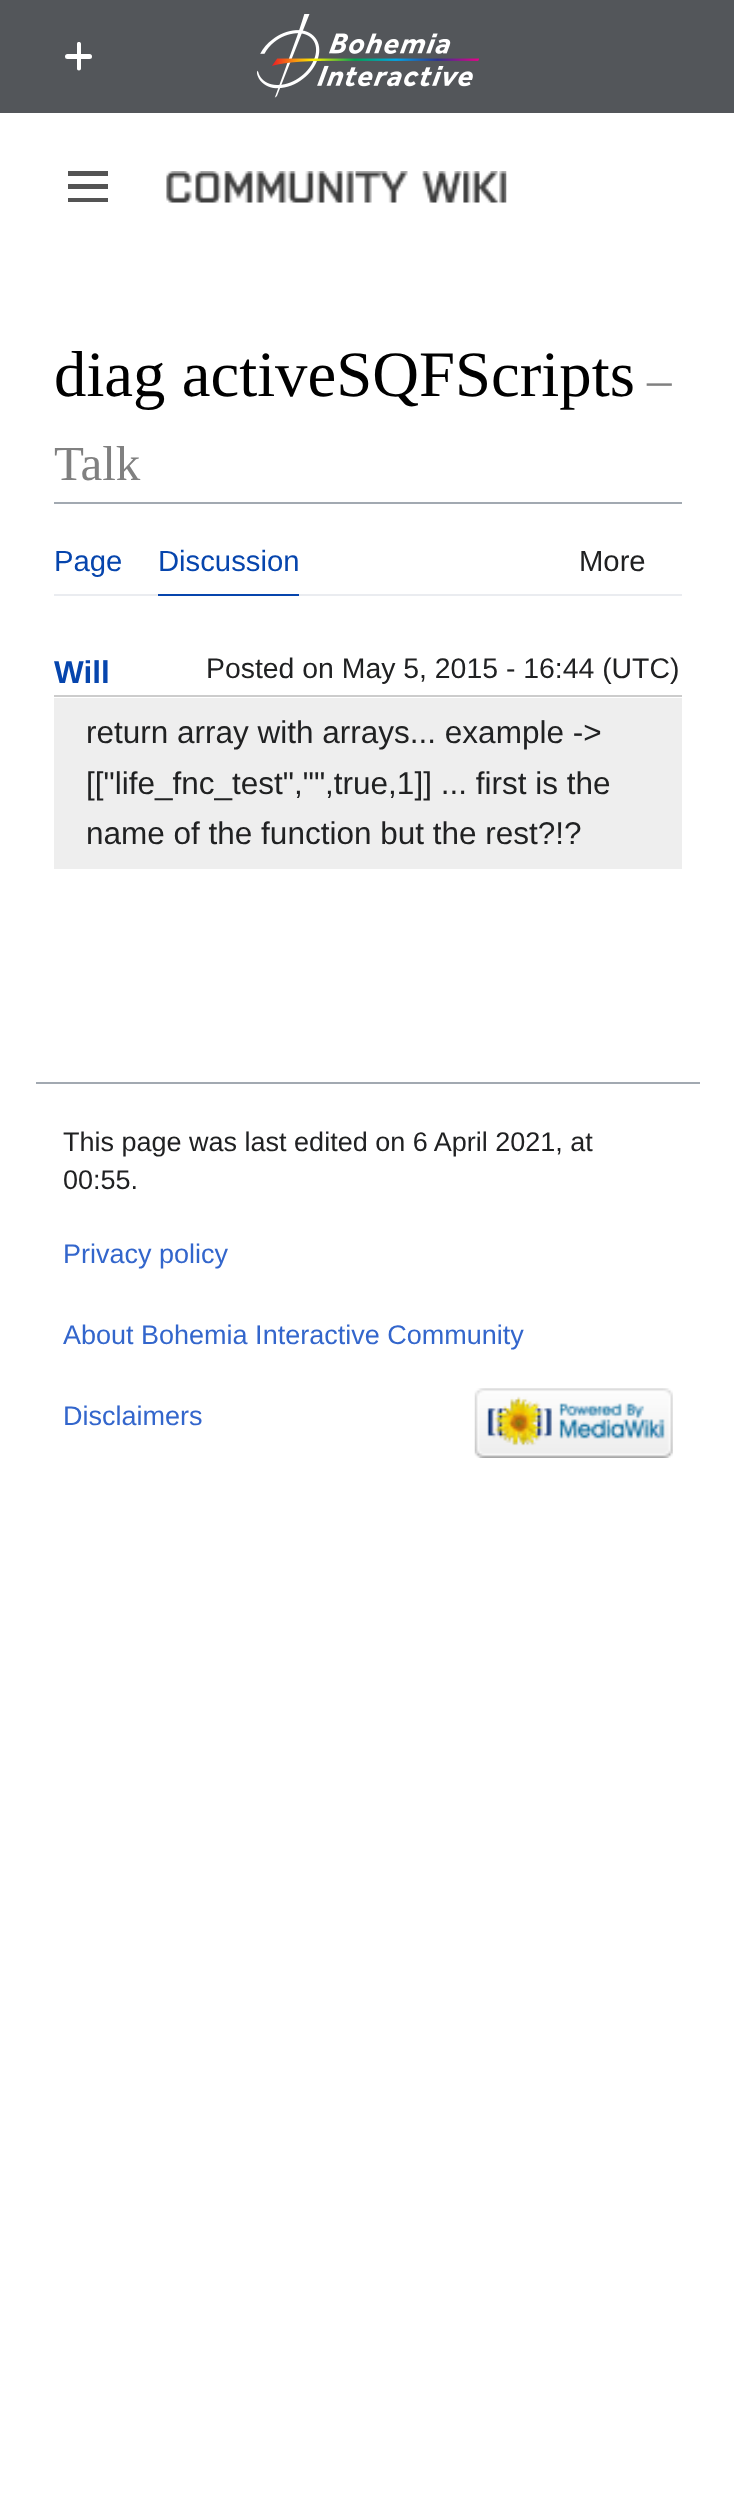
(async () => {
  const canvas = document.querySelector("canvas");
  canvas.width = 734;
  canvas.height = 2506;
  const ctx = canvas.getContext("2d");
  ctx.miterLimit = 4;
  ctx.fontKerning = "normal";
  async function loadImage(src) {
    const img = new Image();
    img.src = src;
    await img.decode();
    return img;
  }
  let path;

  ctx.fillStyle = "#ffffff";
  ctx.fillRect(0, 0, 734, 2506);
  ctx.fillStyle = "#53565a";
  ctx.fillRect(0, 0, 734, 113);
  ctx.fillStyle = "#ffffff";
  ctx.beginPath();
  ctx.roundRect(65, 54, 27, 5, 2.5);
  ctx.fill();
  path = new Path2D("M81 44V68.5C81 69.5 80 70.5 79 70.5C77.5 70.5 77 69.5 77 68.5V44C77 42.5 77.5 42 79 42C80 42 81 42.5 81 44Z");
  ctx.fill(path);
  ctx.drawImage(await loadImage("img/1.png"), 257, 14, 222, 84);
  ctx.fillStyle = "#545454";
  path = new Path2D("M68 171V176H108V171ZM68 189H108V184H68ZM68 202H108V198H68Z");
  ctx.fill(path);
  ctx.drawImage(await loadImage("img/2.png"), 166, 171, 341, 32);
  for (const [x, y, w, h, color] of [
    [54, 502, 628, 2, "#a2a9b1"],
    [54, 594, 628, 2, "#eaecf0"],
    [158, 594, 141, 2, "#0645ad"],
    [54, 695, 628, 2, "#cccccc"],
    [54, 698, 628, 171, "#eeeeee"],
    [36, 1082, 664, 2, "#a2a9b1"],
  ]) {
    ctx.fillStyle = color;
    ctx.fillRect(x, y, w, h);
  }
  ctx.drawImage(await loadImage("img/3.png"), 474, 1388, 199, 70);
  ctx.font = "64.75px Liberation Serif";
  ctx.fillStyle = "#000000";
  ctx.fillText("diag activeSQFScripts", 54, 396);
  ctx.font = "49px Liberation Serif";
  ctx.fillStyle = "#808080";
  ctx.fillText("–", 647, 396);
  ctx.fillText("Talk", 54, 480);
  ctx.font = "29.25px Liberation Sans";
  ctx.fillStyle = "#0645ad";
  ctx.fillText("Page", 54, 571);
  ctx.fillText("Discussion", 158, 571);
  ctx.fillStyle = "#202122";
  ctx.fillText("More", 579, 571);
  ctx.font = "bold 31.5px Liberation Sans";
  ctx.fillStyle = "#0645ad";
  ctx.fillText("Will", 54, 683);
  ctx.font = "28.4px Liberation Sans";
  ctx.fillStyle = "#202122";
  ctx.fillText("Posted on May 5, 2015 - 16:44 (UTC)", 206, 678);
  ctx.font = "31.5px Liberation Sans";
  for (const [text, x, y] of [
    ["return array with arrays... example ->", 86, 743],
    ["[[\"life_fnc_test\",\"\",true,1]] ... first is the", 86, 794],
    ["name of the function but the rest?!?", 86, 844],
  ]) {
    ctx.fillText(text, x, y);
  }
  ctx.font = "27px Liberation Sans";
  ctx.fillText("This page was last edited on 6 April 2021, at", 63, 1151);
  ctx.fillText("00:55.", 63, 1189);
  ctx.fillStyle = "#3366cc";
  for (const [text, x, y] of [
    ["Privacy policy", 63, 1263],
    ["About Bohemia Interactive Community", 63, 1344],
    ["Disclaimers", 63, 1425],
  ]) {
    ctx.fillText(text, x, y);
  }
})();
